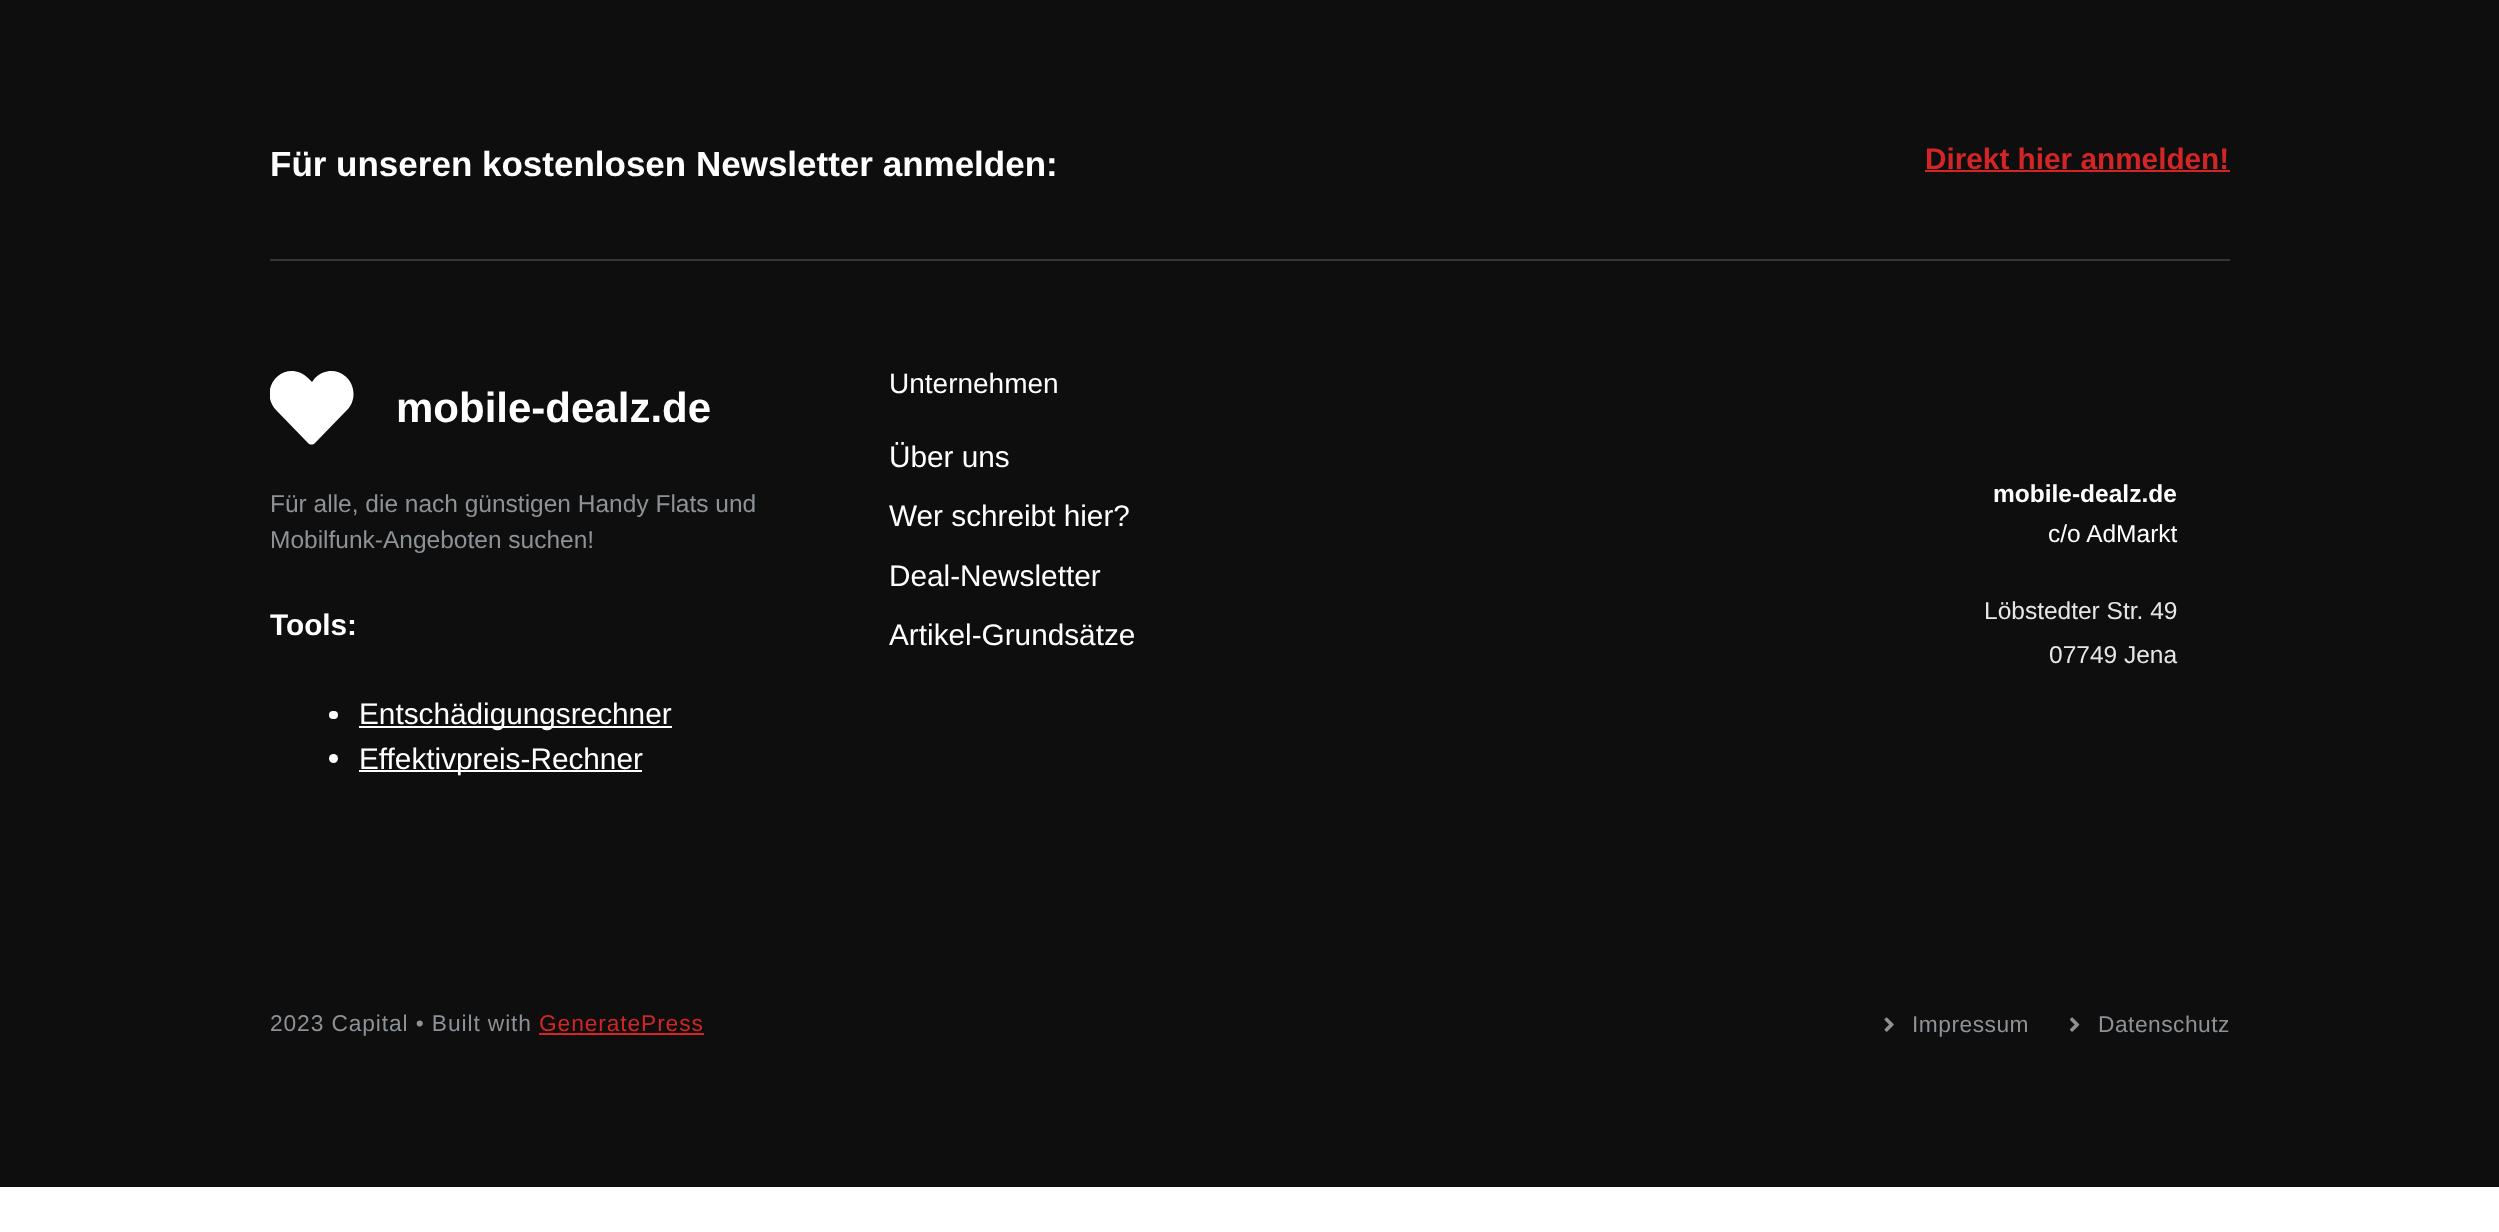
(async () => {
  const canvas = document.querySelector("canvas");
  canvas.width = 2499;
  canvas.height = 1232;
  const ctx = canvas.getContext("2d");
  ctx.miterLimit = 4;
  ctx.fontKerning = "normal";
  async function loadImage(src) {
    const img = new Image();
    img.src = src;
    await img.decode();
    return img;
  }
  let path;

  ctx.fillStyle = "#ffffff";
  ctx.fillRect(0, 0, 2499, 1232);
  for (const [x, y, w, h, color] of [
    [0, 0, 2499, 1187, "#0e0e0e"],
    [270, 259, 1960, 2, "#353535"],
    [1925, 170, 305, 2, "#d32525"],
  ]) {
    ctx.fillStyle = color;
    ctx.fillRect(x, y, w, h);
  }
  ctx.save();
  ctx.beginPath();
  ctx.rect(270, 366, 84, 84);
  ctx.clip();
  ctx.fillStyle = "#ffffff";
  path = new Path2D("M345 376C336 368 323 370 315 378L312 382L308 378C300 370 287 368 278 376C267 385 267 401 276 410L308 443C310 445 313 445 315 443L347 410C356 401 356 385 345 376Z");
  ctx.fill(path);
  ctx.restore();
  ctx.fillStyle = "#ffffff";
  ctx.beginPath();
  ctx.roundRect(329, 711, 9, 8, 4);
  ctx.fill();
  ctx.fillRect(359, 726, 313, 2);
  ctx.beginPath();
  ctx.arc(333.5, 758.5, 4.5, 0, Math.PI * 2);
  ctx.fill();
  ctx.fillRect(359, 770, 283, 2);
  ctx.fillStyle = "#d32525";
  ctx.fillRect(539, 1033, 165, 2);
  ctx.drawImage(await loadImage("img/1.png"), 1884, 1017, 10, 15);
  ctx.drawImage(await loadImage("img/2.png"), 2070, 1017, 10, 15);
  ctx.font = "bold 35px Liberation Sans";
  ctx.fillStyle = "#ffffff";
  ctx.fillText("Für unseren kostenlosen Newsletter anmelden:", 270, 176);
  ctx.font = "bold 29.75px Liberation Sans";
  ctx.fillStyle = "#d32525";
  ctx.fillText("Direkt hier anmelden!", 1925, 169);
  ctx.font = "bold 42px Liberation Sans";
  ctx.fillStyle = "#ffffff";
  ctx.fillText("mobile-dealz.de", 396, 422);
  ctx.font = "24.5px Liberation Sans";
  ctx.fillStyle = "#8d9297";
  ctx.fillText("Für alle, die nach günstigen Handy Flats und", 270, 512);
  ctx.fillText("Mobilfunk-Angeboten suchen!", 270, 548);
  ctx.font = "bold 29.75px Liberation Sans";
  ctx.fillStyle = "#ffffff";
  ctx.fillText("Tools:", 270, 635);
  ctx.font = "29.75px Liberation Sans";
  ctx.fillText("Entschädigungsrechner", 359, 724);
  ctx.fillText("Effektivpreis-Rechner", 359, 769);
  ctx.font = "28px Liberation Sans";
  ctx.fillText("Unternehmen", 889, 393);
  ctx.font = "29.75px Liberation Sans";
  for (const [text, x, y] of [
    ["Über uns", 889, 467],
    ["Wer schreibt hier?", 889, 526],
    ["Deal-Newsletter", 889, 586],
    ["Artikel-Grundsätze", 889, 645],
  ]) {
    ctx.fillText(text, x, y);
  }
  ctx.font = "bold 24.5px Liberation Sans";
  ctx.fillText("mobile-dealz.de", 1993, 502);
  ctx.font = "24.5px Liberation Sans";
  ctx.fillText("c/o AdMarkt", 2048, 542);
  ctx.fillStyle = "#e6e6e6";
  ctx.fillText("Löbstedter Str. 49", 1984, 619);
  ctx.fillText("07749 Jena", 2049, 663);
  ctx.letterSpacing = "0.9px";
  ctx.font = "22.75px Liberation Sans";
  ctx.fillStyle = "#8d9297";
  ctx.fillText("2023 Capital • Built with", 270, 1031);
  ctx.fillStyle = "#d32525";
  ctx.fillText("GeneratePress", 539, 1031);
  ctx.letterSpacing = "0.5px";
  ctx.fillStyle = "#8d9297";
  ctx.fillText("Impressum", 1912, 1032);
  ctx.fillText("Datenschutz", 2098, 1032);
})();
